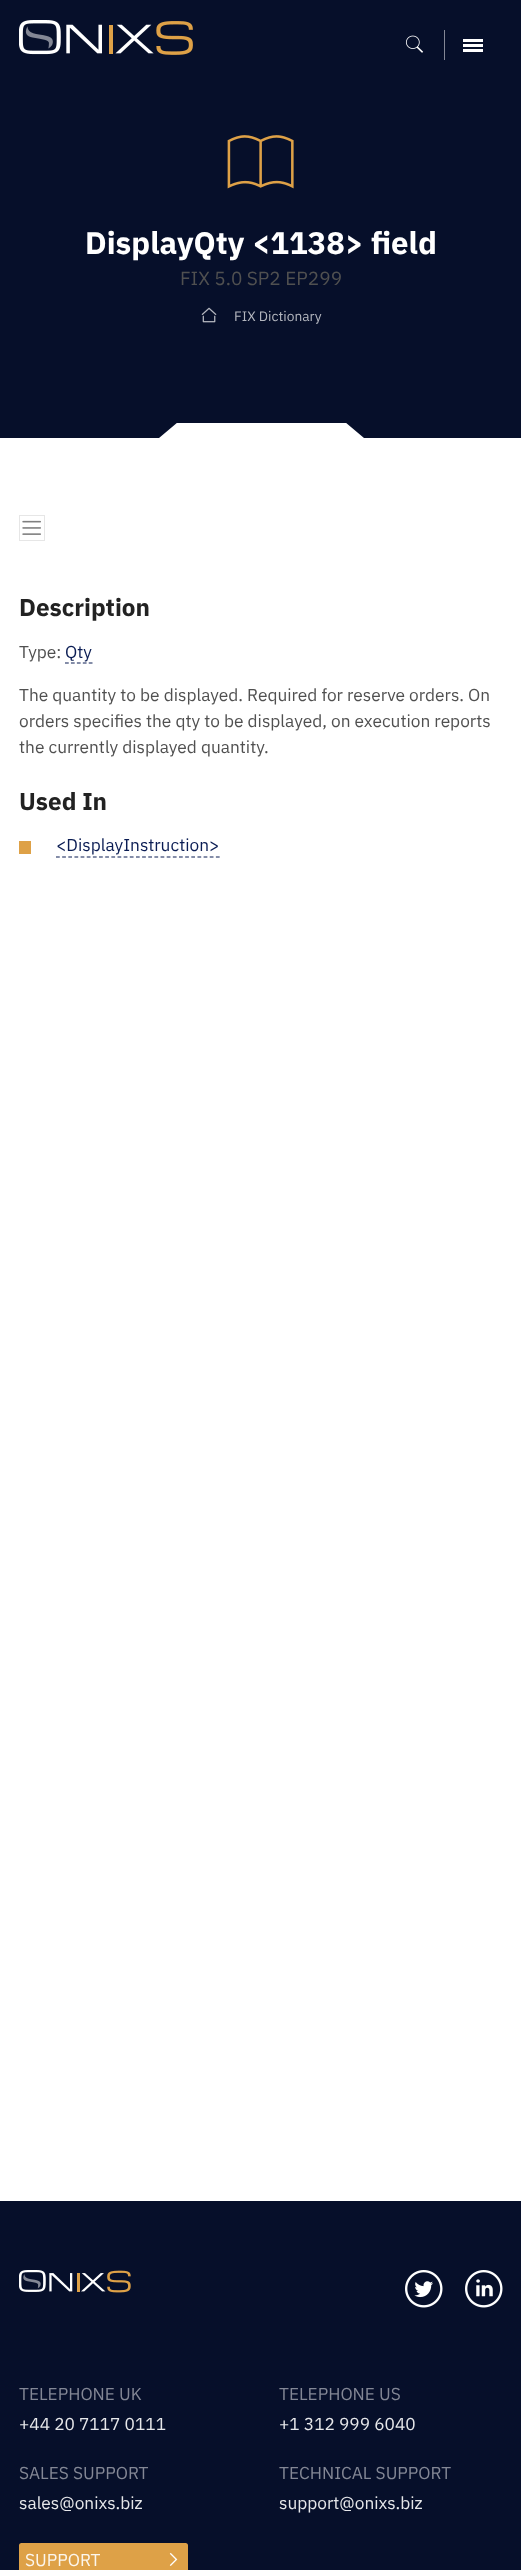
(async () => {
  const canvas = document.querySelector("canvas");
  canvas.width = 521;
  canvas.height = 2570;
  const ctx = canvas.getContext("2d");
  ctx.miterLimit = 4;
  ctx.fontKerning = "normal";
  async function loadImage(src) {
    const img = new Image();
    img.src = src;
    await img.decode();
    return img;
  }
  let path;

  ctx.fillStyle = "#ffffff";
  ctx.fillRect(0, 0, 521, 2570);
  ctx.fillStyle = "#060f2a";
  ctx.fillRect(0, 0, 521, 438);
  ctx.drawImage(await loadImage("img/1.png"), 19, 20, 174, 35);
  ctx.drawImage(await loadImage("img/2.png"), 405, 35, 19, 18);
  for (const [x, y, w, h, color] of [
    [444, 30, 1, 30, "#838795"],
    [463, 39, 20, 3, "#ffffff"],
    [463, 44, 20, 3, "#ffffff"],
    [463, 49, 20, 3, "#ffffff"],
  ]) {
    ctx.fillStyle = color;
    ctx.fillRect(x, y, w, h);
  }
  ctx.drawImage(await loadImage("img/3.png"), 227, 135, 67, 54);
  ctx.drawImage(await loadImage("img/4.png"), 201, 307, 16, 16);
  ctx.save();
  ctx.beginPath();
  ctx.rect(159, 423, 205, 15);
  ctx.clip();
  path = new Path2D("M159 438L178 422H345L364 438Z");
  ctx.fill(path, "evenodd");
  ctx.restore();
  ctx.strokeStyle = "#e6e6e6";
  ctx.strokeRect(19.5, 515.5, 25, 25);
  ctx.drawImage(await loadImage("img/5.png"), 22, 520, 19, 15);
  path = new Path2D("M65 663H92.5");
  ctx.strokeStyle = "#0a1c53";
  ctx.lineWidth = 1.2;
  ctx.setLineDash([3.75, 2.19]);
  ctx.stroke(path);
  ctx.fillStyle = "#dea147";
  ctx.fillRect(19, 841, 12, 13);
  path = new Path2D("M56 857H220");
  ctx.setLineDash([3.75, 2.4]);
  ctx.stroke(path);
  ctx.fillStyle = "#060f2a";
  ctx.fillRect(0, 2201, 521, 369);
  ctx.drawImage(await loadImage("img/6.png"), 19, 2270, 112, 23);
  ctx.drawImage(await loadImage("img/7.png"), 405, 2270, 38, 38);
  ctx.drawImage(await loadImage("img/8.png"), 465, 2270, 38, 38);
  ctx.fillStyle = "#dea147";
  ctx.beginPath();
  ctx.roundRect(19, 2543, 169, 27, [2.5, 2.5, 0, 0]);
  ctx.fill();
  ctx.drawImage(await loadImage("img/9.png"), 169, 2552, 9, 14);
  ctx.font = "bold 31.1px IBM Plex Sans";
  ctx.fillStyle = "#ffffff";
  ctx.fillText("DisplayQty <1138> field", 85, 254);
  ctx.font = "19px IBM Plex Sans";
  ctx.fillStyle = "#505050";
  ctx.fillText("FIX 5.0 SP2 EP299", 180, 285);
  ctx.font = "13.75px IBM Plex Sans";
  ctx.fillStyle = "#b4b7bf";
  ctx.fillText("FIX Dictionary", 234, 321);
  ctx.font = "bold 24.25px IBM Plex Sans";
  ctx.fillStyle = "#222222";
  ctx.fillText("Description", 19, 616);
  ctx.font = "17.3px IBM Plex Sans";
  ctx.fillStyle = "#505050";
  ctx.fillText("Type:", 19, 658);
  ctx.fillStyle = "#0a1c53";
  ctx.fillText("Qty", 65, 658);
  ctx.fillStyle = "#505050";
  for (const [text, x, y] of [
    ["The quantity to be displayed. Required for reserve orders. On", 19, 701],
    ["orders specifies the qty to be displayed, on execution reports", 19, 727],
    ["the currently displayed quantity.", 19, 753],
  ]) {
    ctx.fillText(text, x, y);
  }
  ctx.font = "bold 24.25px IBM Plex Sans";
  ctx.fillStyle = "#222222";
  ctx.fillText("Used In", 19, 810);
  ctx.font = "17.3px IBM Plex Sans";
  ctx.fillStyle = "#0a1c53";
  ctx.fillText("<DisplayInstruction>", 56, 851);
  ctx.fillStyle = "#838795";
  ctx.fillText("TELEPHONE UK", 19, 2400);
  ctx.fillStyle = "#e6e7ea";
  ctx.fillText("+44 20 7117 0111", 19, 2430);
  ctx.fillStyle = "#838795";
  ctx.fillText("TELEPHONE US", 279, 2400);
  ctx.fillStyle = "#e6e7ea";
  ctx.fillText("+1 312 999 6040", 279, 2430);
  ctx.fillStyle = "#838795";
  ctx.fillText("SALES SUPPORT", 19, 2479);
  ctx.fillStyle = "#e6e7ea";
  ctx.fillText("sales@onixs.biz", 19, 2509);
  ctx.fillStyle = "#838795";
  ctx.fillText("TECHNICAL SUPPORT", 279, 2479);
  ctx.fillStyle = "#e6e7ea";
  ctx.fillText("support@onixs.biz", 279, 2509);
  ctx.fillStyle = "#fcf6ed";
  ctx.fillText("SUPPORT", 25, 2566);
})();
